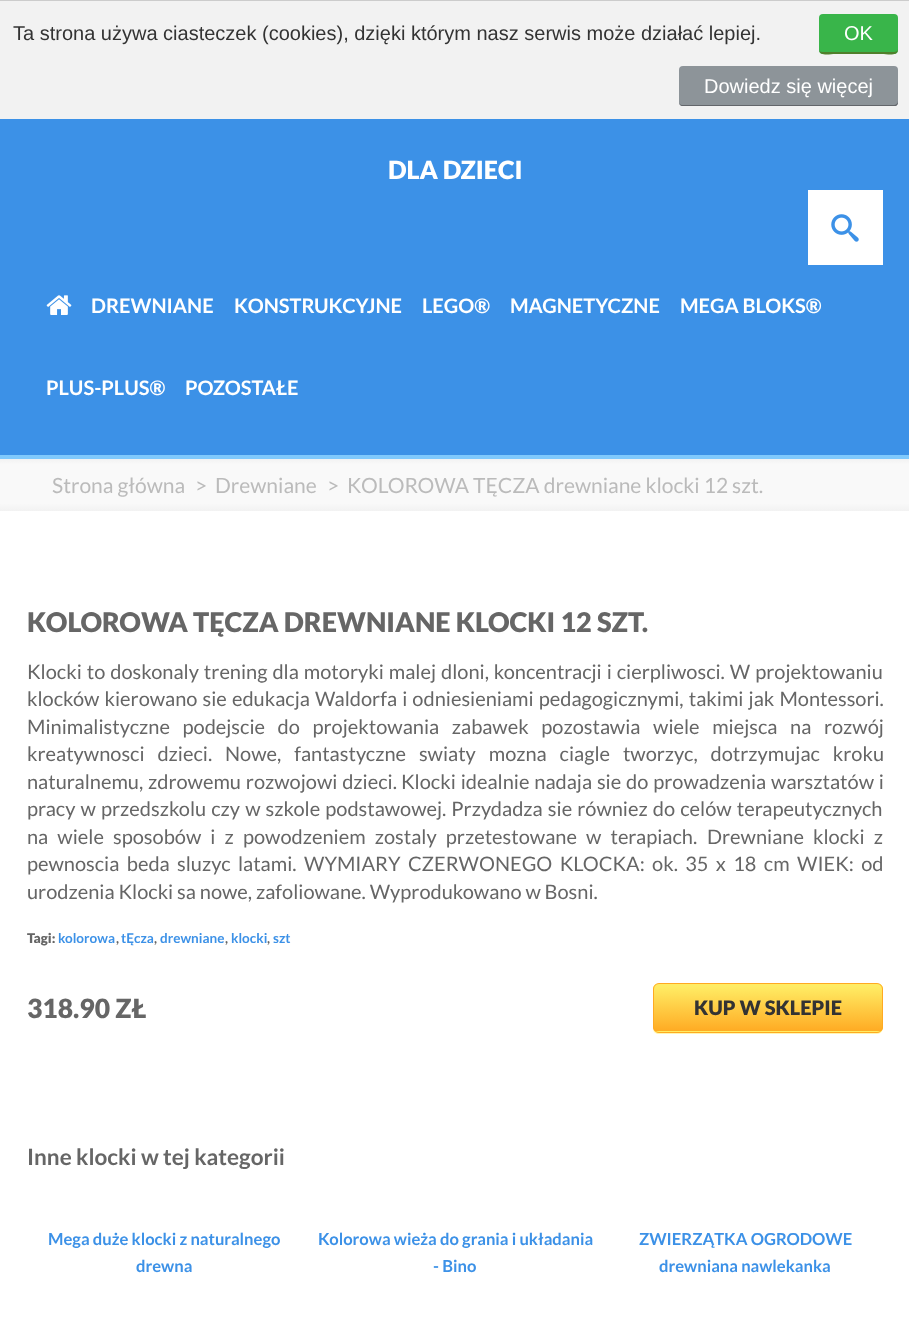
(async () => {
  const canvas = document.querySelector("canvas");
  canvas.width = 909;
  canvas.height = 1333;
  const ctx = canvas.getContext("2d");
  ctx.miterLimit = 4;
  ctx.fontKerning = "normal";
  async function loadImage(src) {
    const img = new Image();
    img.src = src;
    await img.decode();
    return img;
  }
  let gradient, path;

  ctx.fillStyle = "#ffffff";
  ctx.fillRect(0, 0, 909, 1333);
  ctx.fillStyle = "#f2f2f2";
  ctx.fillRect(0, 1, 909, 118);
  ctx.fillStyle = "#cccccc";
  ctx.fillRect(0, 0, 909, 1);
  ctx.fillStyle = "#39b54a";
  ctx.beginPath();
  ctx.roundRect(819, 14, 79, 40, 4);
  ctx.fill();
  ctx.fillStyle = "#507f2b";
  path = new Path2D("M819 49C819 57 830 54 835 54H882C887 54 898 57 898 49C898 51 896 52 894 52H822C820 52 819 51 819 49Z");
  ctx.fill(path);
  ctx.fillStyle = "#8d9499";
  ctx.beginPath();
  ctx.roundRect(679, 66, 219, 40, 4);
  ctx.fill();
  ctx.fillStyle = "#63666b";
  path = new Path2D("M679 101C679 104 680 106 683 106H896C898 105 898 103 898 101C898 103 896 105 894 105H682C680 105 679 103 679 101Z");
  ctx.fill(path);
  for (const [x, y, w, h, color] of [
    [0, 119, 909, 336, "#3c91e7"],
    [0, 455, 909, 4, "#80c9fc"],
    [808, 190, 75, 75, "#ffffff"],
  ]) {
    ctx.fillStyle = color;
    ctx.fillRect(x, y, w, h);
  }
  ctx.drawImage(await loadImage("img/1.png"), 831, 214, 28, 28);
  ctx.drawImage(await loadImage("img/2.png"), 46, 295, 26, 20);
  gradient = ctx.createLinearGradient(455, 459, 455, 511);
  gradient.addColorStop(0, "#f2f2f2");
  gradient.addColorStop(0.1, "#f9f9f9");
  gradient.addColorStop(0.85, "#f9f9f9");
  gradient.addColorStop(1, "#f2f2f2");
  ctx.fillStyle = gradient;
  ctx.fillRect(0, 459, 909, 52);
  ctx.fillStyle = "#fff6af";
  path = new Path2D("M653 1029C653 1032 656 1034 659 1034H877C880 1034 883 1031 883 1028V990L882 987V1026C882 1030 880 1032 876 1032H659C656 1032 654 1031 653 1029Z");
  ctx.fill(path);
  ctx.save();
  ctx.beginPath();
  ctx.roundRect(653, 983, 230, 50, 6);
  ctx.clip();
  gradient = ctx.createLinearGradient(768, 984, 768, 1031);
  gradient.addColorStop(0.05, "#ffec64");
  gradient.addColorStop(1, "#ffab23");
  ctx.fillStyle = gradient;
  ctx.fillRect(653, 984, 230, 47);
  gradient = ctx.createLinearGradient(768, 1031, 768, 1079);
  gradient.addColorStop(0.05, "#ffec64");
  gradient.addColorStop(1, "#ffab23");
  ctx.fillStyle = gradient;
  ctx.fillRect(653, 1031, 230, 2);
  ctx.restore();
  ctx.beginPath();
  ctx.roundRect(653.5, 983.5, 229, 49, 5.5);
  ctx.strokeStyle = "#ffaa22";
  ctx.stroke();
  ctx.font = "20px Liberation Sans";
  ctx.fillStyle = "#333333";
  ctx.fillText("Ta strona używa ciasteczek (cookies), dzięki którym nasz serwis może działać lepiej.", 13, 40);
  ctx.fillStyle = "#ffffff";
  ctx.fillText("OK", 844, 40);
  ctx.fillText("Dowiedz się więcej", 704, 93);
  ctx.font = "900 25px Lato";
  ctx.fillText("DLA DZIECI", 388, 179);
  ctx.font = "bold 20px Lato";
  for (const [text, x, y] of [
    ["DREWNIANE", 91, 313],
    ["KONSTRUKCYJNE", 234, 313],
    ["LEGO®", 422, 313],
    ["MAGNETYCZNE", 510, 313],
    ["MEGA BLOKS®", 680, 313],
    ["PLUS-PLUS®", 46, 395],
    ["POZOSTAŁE", 185, 395],
  ]) {
    ctx.fillText(text, x, y);
  }
  ctx.font = "21px Lato";
  ctx.fillStyle = "#bbbbbb";
  for (const [text, x, y] of [
    ["Strona główna", 52, 493],
    [">", 195, 493],
    ["Drewniane", 215, 493],
    [">", 327, 493],
    ["KOLOROWA TĘCZA drewniane klocki 12 szt.", 347, 493],
  ]) {
    ctx.fillText(text, x, y);
  }
  ctx.font = "900 27px Lato";
  ctx.fillStyle = "#666666";
  ctx.fillText("KOLOROWA TĘCZA DREWNIANE KLOCKI 12 SZT.", 27, 632);
  ctx.wordSpacing = "1.1px";
  ctx.font = "20px Lato";
  ctx.fillText("Klocki to doskonaly trening dla motoryki malej dloni, koncentracji i cierpliwosci. W projektowaniu", 27, 679);
  ctx.wordSpacing = "1.25px";
  ctx.fillText("klocków kierowano sie edukacja Waldorfa i odniesieniami pedagogicznymi, takimi jak Montessori.", 27, 706);
  ctx.wordSpacing = "8.75px";
  ctx.fillText("Minimalistyczne podejscie do projektowania zabawek pozostawia wiele miejsca na rozwój", 27, 734);
  ctx.wordSpacing = "9px";
  ctx.fillText("kreatywnosci dzieci. Nowe, fantastyczne swiaty mozna ciagle tworzyc, dotrzymujac kroku", 27, 761);
  ctx.wordSpacing = "1px";
  ctx.fillText("naturalnemu, zdrowemu rozwojowi dzieci.", 27, 789);
  ctx.fillText("Klocki idealnie nadaja sie do prowadzenia warsztatów i", 401, 789);
  ctx.wordSpacing = "1.25px";
  ctx.fillText("pracy w przedszkolu czy w szkole podstawowej. Przydadza sie równiez do celów terapeutycznych", 27, 816);
  ctx.wordSpacing = "5.25px";
  ctx.fillText("na wiele sposobów i z powodzeniem zostaly przetestowane w terapiach.", 27, 844);
  ctx.fillText("Drewniane klocki z", 707, 844);
  ctx.wordSpacing = "3.5px";
  for (const [text, x, y] of [
    ["pewnoscia beda sluzyc latami.", 27, 871],
    ["WYMIARY CZERWONEGO KLOCKA: ok. 35 x 18 cm", 304, 871],
    ["WIEK: od", 797, 871],
  ]) {
    ctx.fillText(text, x, y);
  }
  ctx.wordSpacing = "0px";
  ctx.fillText("urodzenia Klocki sa nowe, zafoliowane. Wyprodukowano w Bosni.", 27, 899);
  ctx.font = "900 13.5px Lato";
  ctx.fillText("Tagi:", 27, 943);
  ctx.font = "bold 13.5px Lato";
  ctx.fillStyle = "#3c91e7";
  ctx.fillText("kolorowa", 58, 943);
  ctx.fillStyle = "#666666";
  ctx.fillText(",", 116, 943);
  ctx.fillStyle = "#3c91e7";
  ctx.fillText("tĘcza", 121, 943);
  ctx.fillStyle = "#666666";
  ctx.fillText(",", 154, 943);
  ctx.fillStyle = "#3c91e7";
  ctx.fillText("drewniane", 160, 943);
  ctx.fillStyle = "#666666";
  ctx.fillText(",", 225, 943);
  ctx.fillStyle = "#3c91e7";
  ctx.fillText("klocki", 231, 943);
  ctx.fillStyle = "#666666";
  ctx.fillText(",", 267, 943);
  ctx.fillStyle = "#3c91e7";
  ctx.fillText("szt", 273, 943);
  ctx.font = "900 26.5px Lato";
  ctx.fillStyle = "#666666";
  ctx.fillText("318.90 ZŁ", 27, 1018);
  ctx.font = "900 20px Lato";
  ctx.fillStyle = "#333333";
  ctx.fillText("KUP W SKLEPIE", 694, 1015);
  ctx.font = "bold 22.5px Lato";
  ctx.fillStyle = "#666666";
  ctx.fillText("Inne klocki w tej kategorii", 27, 1165);
  ctx.font = "bold 16.6px Lato";
  ctx.fillStyle = "#3c91e7";
  for (const [text, x, y] of [
    ["Mega duże klocki z naturalnego", 48, 1245],
    ["drewna", 136, 1272],
    ["Kolorowa wieża do grania i układania", 318, 1245],
    ["- Bino", 433, 1272],
    ["ZWIERZĄTKA OGRODOWE", 639, 1245],
    ["drewniana nawlekanka", 659, 1272],
  ]) {
    ctx.fillText(text, x, y);
  }
})();
